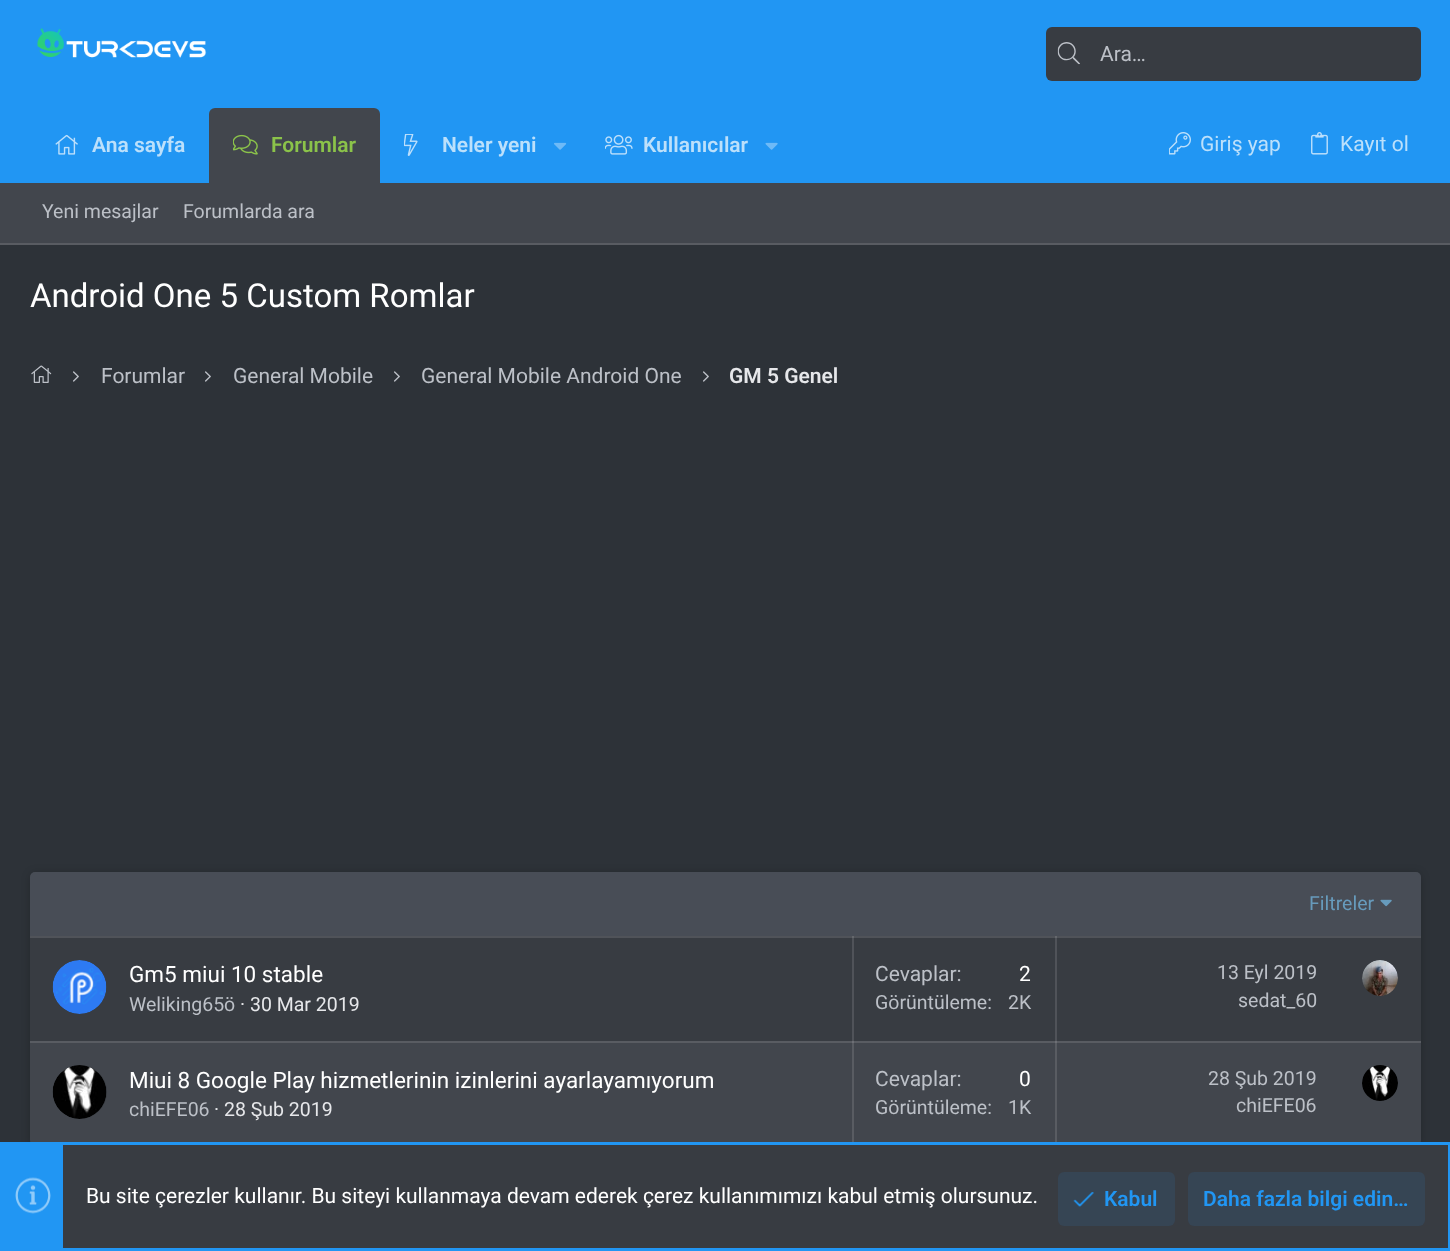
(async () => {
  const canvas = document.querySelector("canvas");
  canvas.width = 1450;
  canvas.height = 1251;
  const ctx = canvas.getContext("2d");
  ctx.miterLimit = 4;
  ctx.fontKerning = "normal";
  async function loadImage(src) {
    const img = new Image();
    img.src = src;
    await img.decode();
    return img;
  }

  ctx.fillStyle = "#2d3238";
  ctx.fillRect(0, 0, 1450, 1251);
  ctx.fillStyle = "#2196f3";
  ctx.fillRect(0, 0, 1450, 183);
  ctx.drawImage(await loadImage("img/1.png"), 37, 28, 170, 30);
  ctx.fillStyle = "#383c42";
  ctx.beginPath();
  ctx.roundRect(1046, 27, 375, 54, 6);
  ctx.fill();
  ctx.drawImage(await loadImage("img/2.png"), 1057, 42, 23, 23);
  ctx.drawImage(await loadImage("img/3.png"), 55, 134, 23, 21);
  ctx.fillStyle = "#42464d";
  ctx.beginPath();
  ctx.roundRect(209, 108, 171, 75, [6, 6, 0, 0]);
  ctx.fill();
  ctx.drawImage(await loadImage("img/4.png"), 233, 134, 25, 21);
  ctx.drawImage(await loadImage("img/5.png"), 404, 134, 14, 22);
  ctx.drawImage(await loadImage("img/6.png"), 554, 142, 13, 8);
  ctx.drawImage(await loadImage("img/7.png"), 605, 134, 28, 21);
  ctx.drawImage(await loadImage("img/8.png"), 765, 142, 13, 8);
  ctx.drawImage(await loadImage("img/9.png"), 1169, 132, 22, 23);
  ctx.drawImage(await loadImage("img/10.png"), 1311, 132, 17, 23);
  ctx.fillRect(0, 183, 1450, 60);
  ctx.fillStyle = "#595c62";
  ctx.fillRect(0, 243, 1450, 2);
  ctx.drawImage(await loadImage("img/11.png"), 31, 365, 21, 18);
  ctx.drawImage(await loadImage("img/12.png"), 73, 371, 6, 11);
  ctx.drawImage(await loadImage("img/12.png"), 205, 371, 6, 11);
  ctx.drawImage(await loadImage("img/12.png"), 394, 371, 6, 11);
  ctx.drawImage(await loadImage("img/12.png"), 703, 371, 6, 11);
  ctx.fillStyle = "rgba(0, 0, 0, 0.2)";
  ctx.filter = "blur(4px)";
  ctx.beginPath();
  ctx.roundRect(30, 873, 1391, 275, 6);
  ctx.fill();
  ctx.filter = "none";
  ctx.fillStyle = "#383c42";
  ctx.beginPath();
  ctx.roundRect(30, 872, 1391, 274, 6);
  ctx.fill();
  ctx.fillStyle = "#505359";
  ctx.fillRect(852, 936, 2, 107);
  ctx.fillRect(1055, 936, 2, 107);
  ctx.fillStyle = "#484d56";
  ctx.beginPath();
  ctx.roundRect(30, 872, 1391, 64, [5, 5, 0, 0]);
  ctx.fill();
  ctx.drawImage(await loadImage("img/13.png"), 1380, 899, 12, 8);
  for (const [x, y, w, h, color] of [
    [30, 936, 1391, 2, "#505359"],
    [852, 936, 2, 2, "#65686d"],
    [1055, 936, 2, 2, "#65686d"],
  ]) {
    ctx.fillStyle = color;
    ctx.fillRect(x, y, w, h);
  }
  ctx.drawImage(await loadImage("img/14.png"), 52, 960, 55, 54);
  ctx.drawImage(await loadImage("img/15.png"), 1362, 960, 36, 36);
  ctx.fillStyle = "#42464d";
  ctx.beginPath();
  ctx.roundRect(30, 1041, 1391, 105, [0, 0, 6, 6]);
  ctx.fill();
  ctx.fillStyle = "#595c62";
  ctx.fillRect(30, 1041, 1391, 2);
  ctx.fillStyle = "#383c42";
  ctx.beginPath();
  ctx.arc(80, 1092, 27, 0, Math.PI * 2);
  ctx.fill();
  ctx.drawImage(await loadImage("img/16.png"), 52, 1065, 55, 54);
  ctx.fillStyle = "rgba(255, 255, 255, 0.12)";
  ctx.fillRect(1055, 1041, 2, 107);
  ctx.fillRect(852, 1041, 2, 107);
  ctx.fillStyle = "#383c42";
  ctx.beginPath();
  ctx.arc(1380, 1083, 18, 0, Math.PI * 2);
  ctx.fill();
  ctx.drawImage(await loadImage("img/17.png"), 1362, 1065, 36, 36);
  ctx.fillRect(63, 1145, 1385, 103);
  ctx.strokeStyle = "#2196f3";
  ctx.lineWidth = 3;
  ctx.strokeRect(1.5, 1143.5, 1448, 106);
  ctx.fillStyle = "#2196f3";
  ctx.fillRect(3, 1145, 60, 103);
  ctx.drawImage(await loadImage("img/18.png"), 15, 1177, 36, 37);
  ctx.fillStyle = "#364554";
  ctx.beginPath();
  ctx.roundRect(1058, 1172, 117, 54, 6);
  ctx.fill();
  ctx.drawImage(await loadImage("img/19.png"), 1073, 1192, 21, 15);
  ctx.beginPath();
  ctx.roundRect(1188, 1172, 237, 54, 6);
  ctx.fill();
  ctx.font = "21px Roboto";
  ctx.fillStyle = "#bcc0c7";
  ctx.fillText("Ara…", 1100, 61);
  ctx.font = "600 21px Roboto";
  ctx.fillStyle = "#bce0fb";
  ctx.fillText("Ana sayfa", 92, 152);
  ctx.fillStyle = "#8bc34a";
  ctx.fillText("Forumlar", 271, 152);
  ctx.fillStyle = "#bce0fb";
  ctx.fillText("Neler yeni", 442, 152);
  ctx.fillText("Kullanıcılar", 643, 152);
  ctx.font = "21px Roboto";
  ctx.fillText("Giriş yap", 1200, 151);
  ctx.fillText("Kayıt ol", 1340, 151);
  ctx.font = "19.5px Roboto";
  ctx.fillStyle = "#bcc0c7";
  ctx.fillText("Yeni mesajlar", 42, 218);
  ctx.fillText("Forumlarda ara", 183, 218);
  ctx.font = "33px Roboto";
  ctx.fillStyle = "#ffffff";
  ctx.fillText("Android One 5 Custom Romlar", 30, 307);
  ctx.font = "21px Roboto";
  ctx.fillStyle = "#bcc0c7";
  for (const [text, x, y] of [
    ["Forumlar", 101, 383],
    ["General Mobile", 233, 383],
    ["General Mobile Android One", 421, 383],
  ]) {
    ctx.fillText(text, x, y);
  }
  ctx.font = "600 21px Roboto";
  ctx.fillStyle = "#e6e7ea";
  ctx.fillText("GM 5 Genel", 729, 383);
  ctx.font = "19.5px Roboto";
  ctx.fillStyle = "#679bbc";
  ctx.fillText("Filtreler", 1309, 910);
  ctx.font = "22.5px Roboto";
  ctx.fillStyle = "#ffffff";
  ctx.fillText("Gm5 miui 10 stable", 129, 982);
  ctx.font = "19.5px Roboto";
  ctx.fillStyle = "#bcc0c7";
  ctx.fillText("Weliking65ö", 129, 1011);
  ctx.fillStyle = "#e6e7ea";
  ctx.fillText("· 30 Mar 2019", 240, 1011);
  ctx.font = "21px Roboto";
  ctx.fillStyle = "#bcc0c7";
  ctx.fillText("Cevaplar:", 875, 981);
  ctx.fillStyle = "#ffffff";
  ctx.fillText("2", 1019, 981);
  ctx.font = "19.5px Roboto";
  ctx.fillStyle = "#bcc0c7";
  for (const [text, x, y] of [
    ["Görüntüleme:", 875, 1009],
    ["2K", 1008, 1009],
    ["13 Eyl 2019", 1217, 979],
    ["sedat_60", 1238, 1007],
  ]) {
    ctx.fillText(text, x, y);
  }
  ctx.font = "22.5px Roboto";
  ctx.fillStyle = "#ffffff";
  ctx.fillText("Miui 8 Google Play hizmetlerinin izinlerini ayarlayamıyorum", 129, 1088);
  ctx.font = "19.5px Roboto";
  ctx.fillStyle = "#bcc0c7";
  ctx.fillText("chiEFE06", 129, 1116);
  ctx.fillStyle = "#e6e7ea";
  ctx.fillText("· 28 Şub 2019", 214, 1116);
  ctx.font = "21px Roboto";
  ctx.fillStyle = "#bcc0c7";
  ctx.fillText("Cevaplar:", 875, 1086);
  ctx.fillStyle = "#ffffff";
  ctx.fillText("0", 1019, 1086);
  ctx.font = "19.5px Roboto";
  ctx.fillStyle = "#bcc0c7";
  for (const [text, x, y] of [
    ["Görüntüleme:", 875, 1114],
    ["1K", 1008, 1114],
    ["28 Şub 2019", 1208, 1085],
    ["chiEFE06", 1236, 1112],
  ]) {
    ctx.fillText(text, x, y);
  }
  ctx.font = "21px Roboto";
  ctx.fillStyle = "#ffffff";
  ctx.fillText("Bu site çerezler kullanır. Bu siteyi kullanmaya devam ederek çerez kullanımımızı kabul etmiş olursunuz.", 86, 1203);
  ctx.font = "600 21px Roboto";
  ctx.fillStyle = "#2196f3";
  ctx.fillText("Kabul", 1104, 1206);
  ctx.fillText("Daha fazla bilgi edin…", 1203, 1206);
})();
